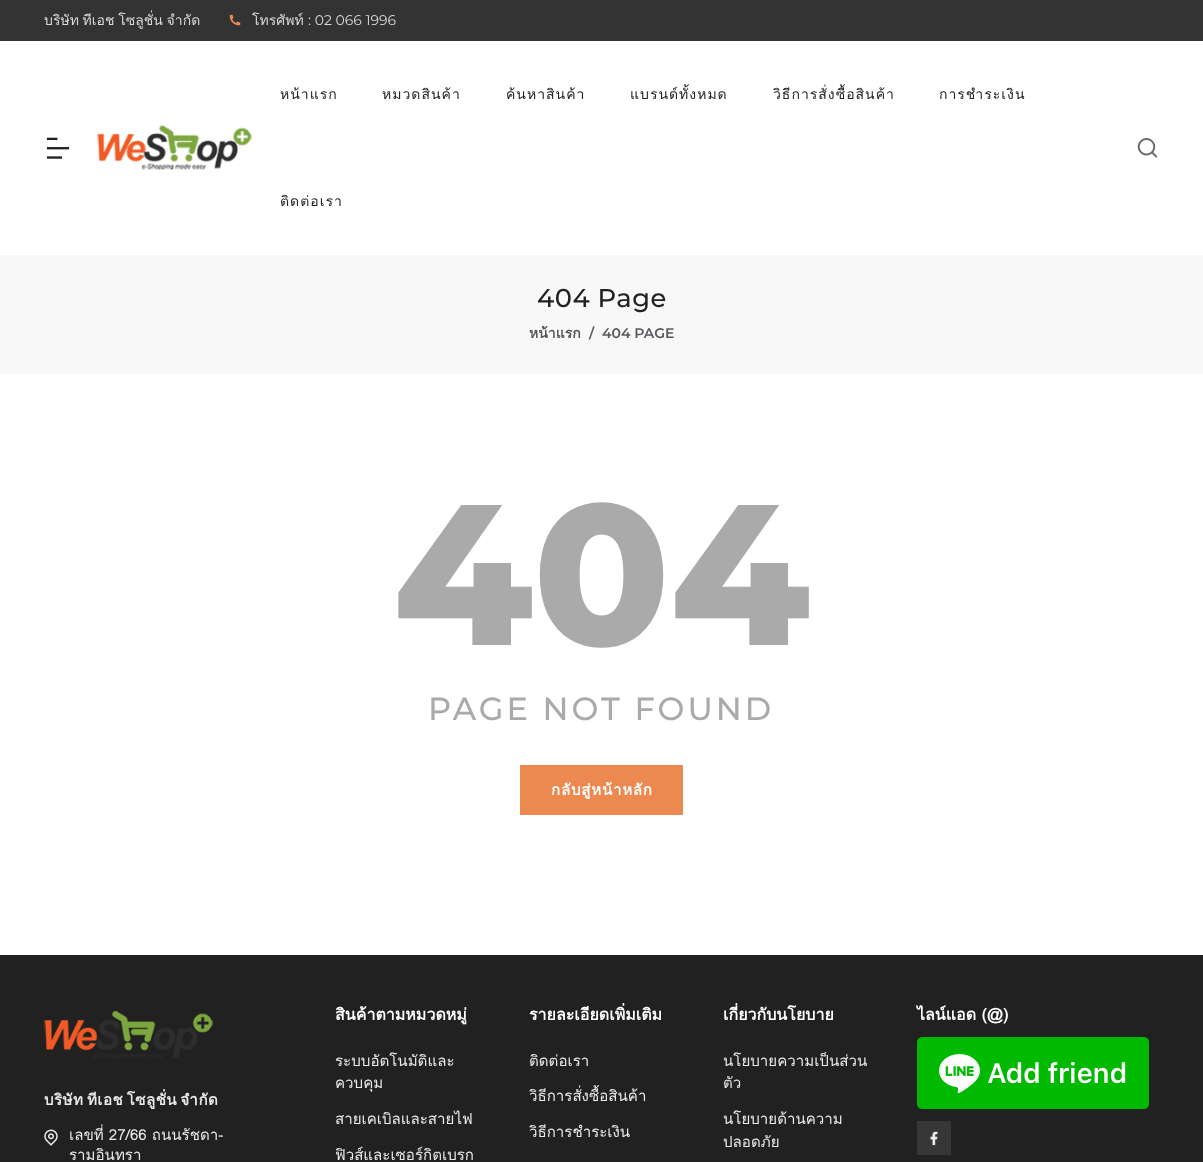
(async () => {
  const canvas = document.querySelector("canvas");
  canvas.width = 1203;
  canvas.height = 1162;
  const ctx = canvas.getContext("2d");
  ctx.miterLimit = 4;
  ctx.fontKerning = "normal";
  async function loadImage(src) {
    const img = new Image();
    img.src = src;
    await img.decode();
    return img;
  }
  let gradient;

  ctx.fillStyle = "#ffffff";
  ctx.fillRect(0, 0, 1203, 1162);
  ctx.fillStyle = "#333333";
  ctx.fillRect(0, 0, 1203, 41);
  ctx.drawImage(await loadImage("img/1.png"), 229, 14, 12, 12);
  ctx.drawImage(await loadImage("img/2.png"), 46, 137, 24, 22);
  ctx.drawImage(await loadImage("img/3.png"), 97, 125, 155, 45);
  ctx.drawImage(await loadImage("img/4.png"), 1137, 138, 21, 20);
  ctx.fillStyle = "#f8f8f8";
  ctx.fillRect(0, 255, 1203, 119);
  gradient = ctx.createLinearGradient(831, 991, 1063, 589);
  gradient.addColorStop(0.5, "#ec8951");
  gradient.addColorStop(0.5, "#ffffff");
  ctx.fillStyle = gradient;
  ctx.fillRect(522, 767, 159, 46);
  ctx.strokeStyle = "#ec8951";
  ctx.lineWidth = 2;
  ctx.strokeRect(521, 766, 161, 48);
  ctx.fillStyle = "#212121";
  ctx.fillRect(0, 955, 1203, 207);
  ctx.drawImage(await loadImage("img/5.png"), 44, 1011, 169, 48);
  ctx.drawImage(await loadImage("img/6.png"), 44, 1129, 14, 17);
  ctx.drawImage(await loadImage("img/7.png"), 917, 1037, 232, 72);
  ctx.fillStyle = "#373737";
  ctx.fillRect(917, 1121, 34, 34);
  ctx.drawImage(await loadImage("img/8.png"), 930, 1131, 8, 15);
  ctx.wordSpacing = "-1px";
  ctx.font = "14px Loma";
  ctx.fillStyle = "#d9d9d9";
  ctx.fillText("บริษัท ทีเอช โซลูชั่น จำกัด", 44, 25);
  ctx.wordSpacing = "0px";
  ctx.fillText("โทรศัพท์", 252, 25);
  ctx.font = "14px Montserrat";
  ctx.fillText(": 02 066 1996", 308, 25);
  ctx.letterSpacing = "1px";
  ctx.font = "14px Loma";
  ctx.fillStyle = "#222222";
  for (const [text, x, y] of [
    ["หน้าแรก", 280, 99],
    ["หมวดสินค้า", 382, 99],
    ["ค้นหาสินค้า", 506, 99],
    ["แบรนด์ทั้งหมด", 630, 99],
    ["วิธีการสั่งซื้อสินค้า", 773, 99],
    ["การชำระเงิน", 939, 99],
    ["ติดต่อเรา", 280, 206],
  ]) {
    ctx.fillText(text, x, y);
  }
  ctx.letterSpacing = "0.5px";
  ctx.font = "500 25.75px Montserrat";
  ctx.fillText("404 Page", 537, 307);
  ctx.letterSpacing = "0px";
  ctx.font = "bold 14px Loma";
  ctx.fillStyle = "#555555";
  ctx.fillText("หน้าแรก", 529, 338);
  ctx.font = "600 14px Montserrat";
  ctx.fillStyle = "#575a5d";
  ctx.fillText("/", 589, 338);
  ctx.fillText("404 PAGE", 602, 338);
  ctx.font = "800 200px Montserrat";
  ctx.fillStyle = "#aaaaaa";
  ctx.fillText("404", 393, 645);
  ctx.letterSpacing = "3px";
  ctx.font = "500 32px Montserrat";
  ctx.fillText("PAGE NOT FOUND", 428, 720);
  ctx.letterSpacing = "0.75px";
  ctx.font = "bold 15.1px Loma";
  ctx.fillStyle = "#ffffff";
  ctx.fillText("กลับสู่หน้าหลัก", 551, 795);
  ctx.letterSpacing = "0.45px";
  ctx.wordSpacing = "-2px";
  ctx.fillStyle = "#e9e9e9";
  ctx.fillText("บริษัท ทีเอช โซลูชั่น จำกัด", 44, 1105);
  ctx.letterSpacing = "0px";
  ctx.wordSpacing = "0px";
  ctx.font = "15.1px Loma";
  ctx.fillText("เลขที่ 27/66 ถนนรัชดา-", 69, 1140);
  ctx.fillText("รามอินทรา", 69, 1160);
  ctx.font = "bold 16px Loma";
  ctx.fillStyle = "#ffffff";
  ctx.fillText("สินค้าตามหมวดหมู่", 335, 1020);
  ctx.font = "15.1px Loma";
  ctx.fillStyle = "#e9e9e9";
  for (const [text, x, y] of [
    ["ระบบอัตโนมัติและ", 335, 1066],
    ["ควบคุม", 335, 1088],
    ["สายเคเบิลและสายไฟ", 335, 1124],
    ["ฟิวส์และเซอร์กิตเบรก", 335, 1160],
  ]) {
    ctx.fillText(text, x, y);
  }
  ctx.font = "bold 16px Loma";
  ctx.fillStyle = "#ffffff";
  ctx.fillText("รายละเอียดเพิ่มเติม", 529, 1020);
  ctx.font = "15.1px Loma";
  ctx.fillStyle = "#e9e9e9";
  for (const [text, x, y] of [
    ["ติดต่อเรา", 529, 1066],
    ["วิธีการสั่งซื้อสินค้า", 529, 1101],
    ["วิธีการชำระเงิน", 529, 1137],
  ]) {
    ctx.fillText(text, x, y);
  }
  ctx.font = "bold 16px Loma";
  ctx.fillStyle = "#ffffff";
  ctx.fillText("เกี่ยวกับนโยบาย", 723, 1020);
  ctx.font = "15.1px Loma";
  ctx.fillStyle = "#e9e9e9";
  for (const [text, x, y] of [
    ["นโยบายความเป็นส่วน", 723, 1066],
    ["ตัว", 723, 1088],
    ["นโยบายด้านความ", 723, 1124],
    ["ปลอดภัย", 723, 1147],
  ]) {
    ctx.fillText(text, x, y);
  }
  ctx.font = "bold 16px Loma";
  ctx.fillStyle = "#ffffff";
  ctx.fillText("ไลน์แอด (@)", 917, 1020);
})();
